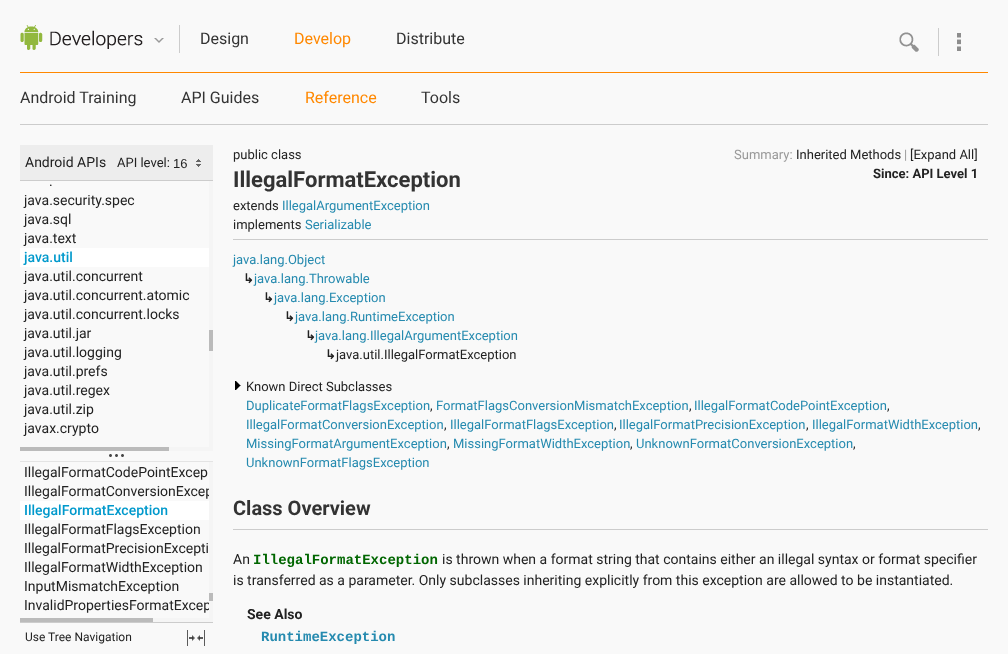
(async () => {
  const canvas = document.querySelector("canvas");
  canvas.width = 1008;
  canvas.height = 654;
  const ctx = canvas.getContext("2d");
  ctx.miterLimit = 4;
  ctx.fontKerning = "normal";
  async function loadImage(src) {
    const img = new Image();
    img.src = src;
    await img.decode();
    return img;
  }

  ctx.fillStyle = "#f9f9f9";
  ctx.fillRect(0, 0, 1008, 654);
  ctx.fillStyle = "#ff8800";
  ctx.fillRect(20, 72, 968, 1);
  ctx.drawImage(await loadImage("img/1.png"), 20, 25, 123, 25);
  ctx.fillStyle = "#cccccc";
  ctx.fillRect(179, 25, 1, 28);
  ctx.drawImage(await loadImage("img/2.png"), 154, 38, 10, 5);
  ctx.drawImage(await loadImage("img/3.png"), 899, 32, 20, 20);
  ctx.drawImage(await loadImage("img/4.png"), 957, 33, 4, 18);
  for (const [x, y, w, h, color] of [
    [938, 28, 1, 28, "#cccccc"],
    [20, 124, 968, 1, "#cccccc"],
    [20, 145, 193, 35, "#ededed"],
    [20, 180, 193, 1, "#cccccc"],
  ]) {
    ctx.fillStyle = color;
    ctx.fillRect(x, y, w, h);
  }
  ctx.drawImage(await loadImage("img/5.png"), 196, 159, 5, 8);
  for (const [x, y, w, h, color] of [
    [20, 248, 189, 19, "#ffffff"],
    [209, 181, 4, 270, "#f5f5f5"],
    [209, 330, 4, 21, "#bbbbbb"],
    [169, 447, 44, 4, "#f5f5f5"],
    [20, 447, 149, 4, "#bbbbbb"],
  ]) {
    ctx.fillStyle = color;
    ctx.fillRect(x, y, w, h);
  }
  ctx.drawImage(await loadImage("img/6.png"), 109, 454, 15, 3);
  for (const [x, y, w, h, color] of [
    [20, 501, 189, 19, "#ffffff"],
    [20, 618, 133, 4, "#bbbbbb"],
    [20, 622, 193, 1, "#cccccc"],
  ]) {
    ctx.fillStyle = color;
    ctx.fillRect(x, y, w, h);
  }
  ctx.drawImage(await loadImage("img/7.png"), 187, 630, 18, 16);
  ctx.fillRect(233, 239, 755, 1);
  ctx.drawImage(await loadImage("img/8.png"), 235, 381, 6, 9);
  ctx.fillRect(233, 529, 755, 1);
  ctx.font = "16px Roboto";
  ctx.fillStyle = "#333333";
  ctx.fillText("Design", 200, 44);
  ctx.fillStyle = "#ff8800";
  ctx.fillText("Develop", 294, 44);
  ctx.fillStyle = "#333333";
  for (const [text, x, y] of [
    ["Distribute", 396, 44],
    ["Android Training", 20, 103],
    ["API Guides", 181, 103],
  ]) {
    ctx.fillText(text, x, y);
  }
  ctx.fillStyle = "#ff8800";
  ctx.fillText("Reference", 305, 103);
  ctx.fillStyle = "#333333";
  ctx.fillText("Tools", 421, 103);
  ctx.font = "14px Roboto";
  ctx.fillStyle = "#222222";
  ctx.fillText("Android APIs", 25, 167);
  ctx.font = "13px Roboto";
  ctx.fillText("API level:", 117, 167);
  ctx.font = "13px Liberation Sans";
  ctx.fillText("16", 173, 168);
  ctx.font = "14px Roboto";
  for (const [text, x, y] of [
    [".", 49, 186],
    ["java.security.spec", 24, 205],
    ["java.sql", 24, 224],
    ["java.text", 24, 243],
  ]) {
    ctx.fillText(text, x, y);
  }
  ctx.font = "500 14px Roboto";
  ctx.fillStyle = "#0099cc";
  ctx.fillText("java.util", 24, 262);
  ctx.font = "14px Roboto";
  ctx.fillStyle = "#222222";
  for (const [text, x, y] of [
    ["java.util.concurrent", 24, 281],
    ["java.util.concurrent.atomic", 24, 300],
    ["java.util.concurrent.locks", 24, 319],
    ["java.util.jar", 24, 338],
    ["java.util.logging", 24, 357],
    ["java.util.prefs", 24, 376],
    ["java.util.regex", 24, 395],
    ["java.util.zip", 24, 414],
    ["javax.crypto", 24, 433],
    ["IllegalFormatCodePointExcep", 24, 477],
    ["IllegalFormatConversionExcep", 24, 496],
  ]) {
    ctx.fillText(text, x, y);
  }
  ctx.font = "500 14px Roboto";
  ctx.fillStyle = "#0099cc";
  ctx.fillText("IllegalFormatException", 24, 515);
  ctx.font = "14px Roboto";
  ctx.fillStyle = "#222222";
  for (const [text, x, y] of [
    ["IllegalFormatFlagsException", 24, 534],
    ["IllegalFormatPrecisionExcepti", 24, 553],
    ["IllegalFormatWidthException", 24, 572],
    ["InputMismatchException", 24, 591],
    ["InvalidPropertiesFormatExcep", 24, 610],
  ]) {
    ctx.fillText(text, x, y);
  }
  for (const [x, y, w, h, color] of [
    [209, 461, 4, 161, "#f5f5f5"],
    [20, 461, 193, 1, "#e4e4e4"],
    [209, 593, 4, 8, "#bbbbbb"],
    [153, 618, 60, 4, "#f5f5f5"],
  ]) {
    ctx.fillStyle = color;
    ctx.fillRect(x, y, w, h);
  }
  ctx.font = "12px Roboto";
  ctx.fillStyle = "#222222";
  ctx.fillText("Use Tree Navigation", 25, 641);
  ctx.font = "13px Roboto";
  ctx.fillText("public class", 233, 159);
  ctx.font = "bold 22px Roboto";
  ctx.fillStyle = "#333333";
  ctx.fillText("IllegalFormatException", 233, 187);
  ctx.font = "13px Roboto";
  ctx.fillStyle = "#222222";
  ctx.fillText("extends", 233, 210);
  ctx.fillStyle = "#258aaf";
  ctx.fillText("IllegalArgumentException", 282, 210);
  ctx.fillStyle = "#222222";
  ctx.fillText("implements", 233, 229);
  ctx.fillStyle = "#258aaf";
  ctx.fillText("Serializable", 305, 229);
  ctx.fillStyle = "#999999";
  ctx.fillText("Summary:", 734, 159);
  ctx.fillStyle = "#222222";
  ctx.fillText("Inherited Methods", 796, 159);
  ctx.fillStyle = "#999999";
  ctx.fillText("|", 904, 159);
  ctx.fillStyle = "#222222";
  ctx.fillText("[Expand All]", 910, 159);
  ctx.font = "bold 13px Roboto";
  ctx.fillText("Since: API Level 1", 873, 178);
  ctx.font = "13px Roboto";
  ctx.fillStyle = "#258aaf";
  ctx.fillText("java.lang.Object", 233, 264);
  ctx.font = "bold 13px DejaVu Sans";
  ctx.fillStyle = "#222222";
  ctx.fillText("↳", 243, 283);
  ctx.font = "13px Roboto";
  ctx.fillStyle = "#258aaf";
  ctx.fillText("java.lang.Throwable", 254, 283);
  ctx.font = "bold 13px DejaVu Sans";
  ctx.fillStyle = "#222222";
  ctx.fillText("↳", 263, 302);
  ctx.font = "13px Roboto";
  ctx.fillStyle = "#258aaf";
  ctx.fillText("java.lang.Exception", 274, 302);
  ctx.font = "bold 13px DejaVu Sans";
  ctx.fillStyle = "#222222";
  ctx.fillText("↳", 284, 321);
  ctx.font = "13px Roboto";
  ctx.fillStyle = "#258aaf";
  ctx.fillText("java.lang.RuntimeException", 295, 321);
  ctx.font = "bold 13px DejaVu Sans";
  ctx.fillStyle = "#222222";
  ctx.fillText("↳", 305, 340);
  ctx.font = "13px Roboto";
  ctx.fillStyle = "#258aaf";
  ctx.fillText("java.lang.IllegalArgumentException", 315, 340);
  ctx.font = "bold 13px DejaVu Sans";
  ctx.fillStyle = "#222222";
  ctx.fillText("↳", 325, 359);
  ctx.font = "13px Roboto";
  ctx.fillText("java.util.IllegalFormatException", 336, 359);
  ctx.fillText("Known Direct Subclasses", 246, 391);
  ctx.fillStyle = "#258aaf";
  ctx.fillText("DuplicateFormatFlagsException", 246, 410);
  ctx.fillStyle = "#222222";
  ctx.fillText(",", 430, 410);
  ctx.fillStyle = "#258aaf";
  ctx.fillText("FormatFlagsConversionMismatchException", 436, 410);
  ctx.fillStyle = "#222222";
  ctx.fillText(",", 689, 410);
  ctx.fillStyle = "#258aaf";
  ctx.fillText("IllegalFormatCodePointException", 694, 410);
  ctx.fillStyle = "#222222";
  ctx.fillText(",", 887, 410);
  ctx.fillStyle = "#258aaf";
  ctx.fillText("IllegalFormatConversionException", 246, 429);
  ctx.fillStyle = "#222222";
  ctx.fillText(",", 444, 429);
  ctx.fillStyle = "#258aaf";
  ctx.fillText("IllegalFormatFlagsException", 450, 429);
  ctx.fillStyle = "#222222";
  ctx.fillText(",", 614, 429);
  ctx.fillStyle = "#258aaf";
  ctx.fillText("IllegalFormatPrecisionException", 619, 429);
  ctx.fillStyle = "#222222";
  ctx.fillText(",", 806, 429);
  ctx.fillStyle = "#258aaf";
  ctx.fillText("IllegalFormatWidthException", 812, 429);
  ctx.fillStyle = "#222222";
  ctx.fillText(",", 978, 429);
  ctx.fillStyle = "#258aaf";
  ctx.fillText("MissingFormatArgumentException", 246, 448);
  ctx.fillStyle = "#222222";
  ctx.fillText(",", 447, 448);
  ctx.fillStyle = "#258aaf";
  ctx.fillText("MissingFormatWidthException", 453, 448);
  ctx.fillStyle = "#222222";
  ctx.fillText(",", 630, 448);
  ctx.fillStyle = "#258aaf";
  ctx.fillText("UnknownFormatConversionException", 636, 448);
  ctx.fillStyle = "#222222";
  ctx.fillText(",", 853, 448);
  ctx.fillStyle = "#258aaf";
  ctx.fillText("UnknownFormatFlagsException", 246, 467);
  ctx.font = "bold 20px Roboto";
  ctx.fillStyle = "#333333";
  ctx.fillText("Class Overview", 233, 515);
  ctx.font = "14px Roboto";
  ctx.fillStyle = "#222222";
  ctx.fillText("An", 233, 564);
  ctx.font = "bold 14px Liberation Mono";
  ctx.fillStyle = "#006600";
  ctx.fillText("IllegalFormatException", 253, 564);
  ctx.font = "14px Roboto";
  ctx.fillStyle = "#222222";
  ctx.fillText("is thrown when a format string that contains either an illegal syntax or format specifier", 442, 564);
  ctx.fillText("is transferred as a parameter. Only subclasses inheriting explicitly from this exception are allowed to be instantiated.", 233, 585);
  ctx.font = "bold 14px Roboto";
  ctx.fillText("See Also", 247, 619);
  ctx.font = "bold 14px Liberation Mono";
  ctx.fillStyle = "#258aaf";
  ctx.fillText("RuntimeException", 261, 641);
})();
